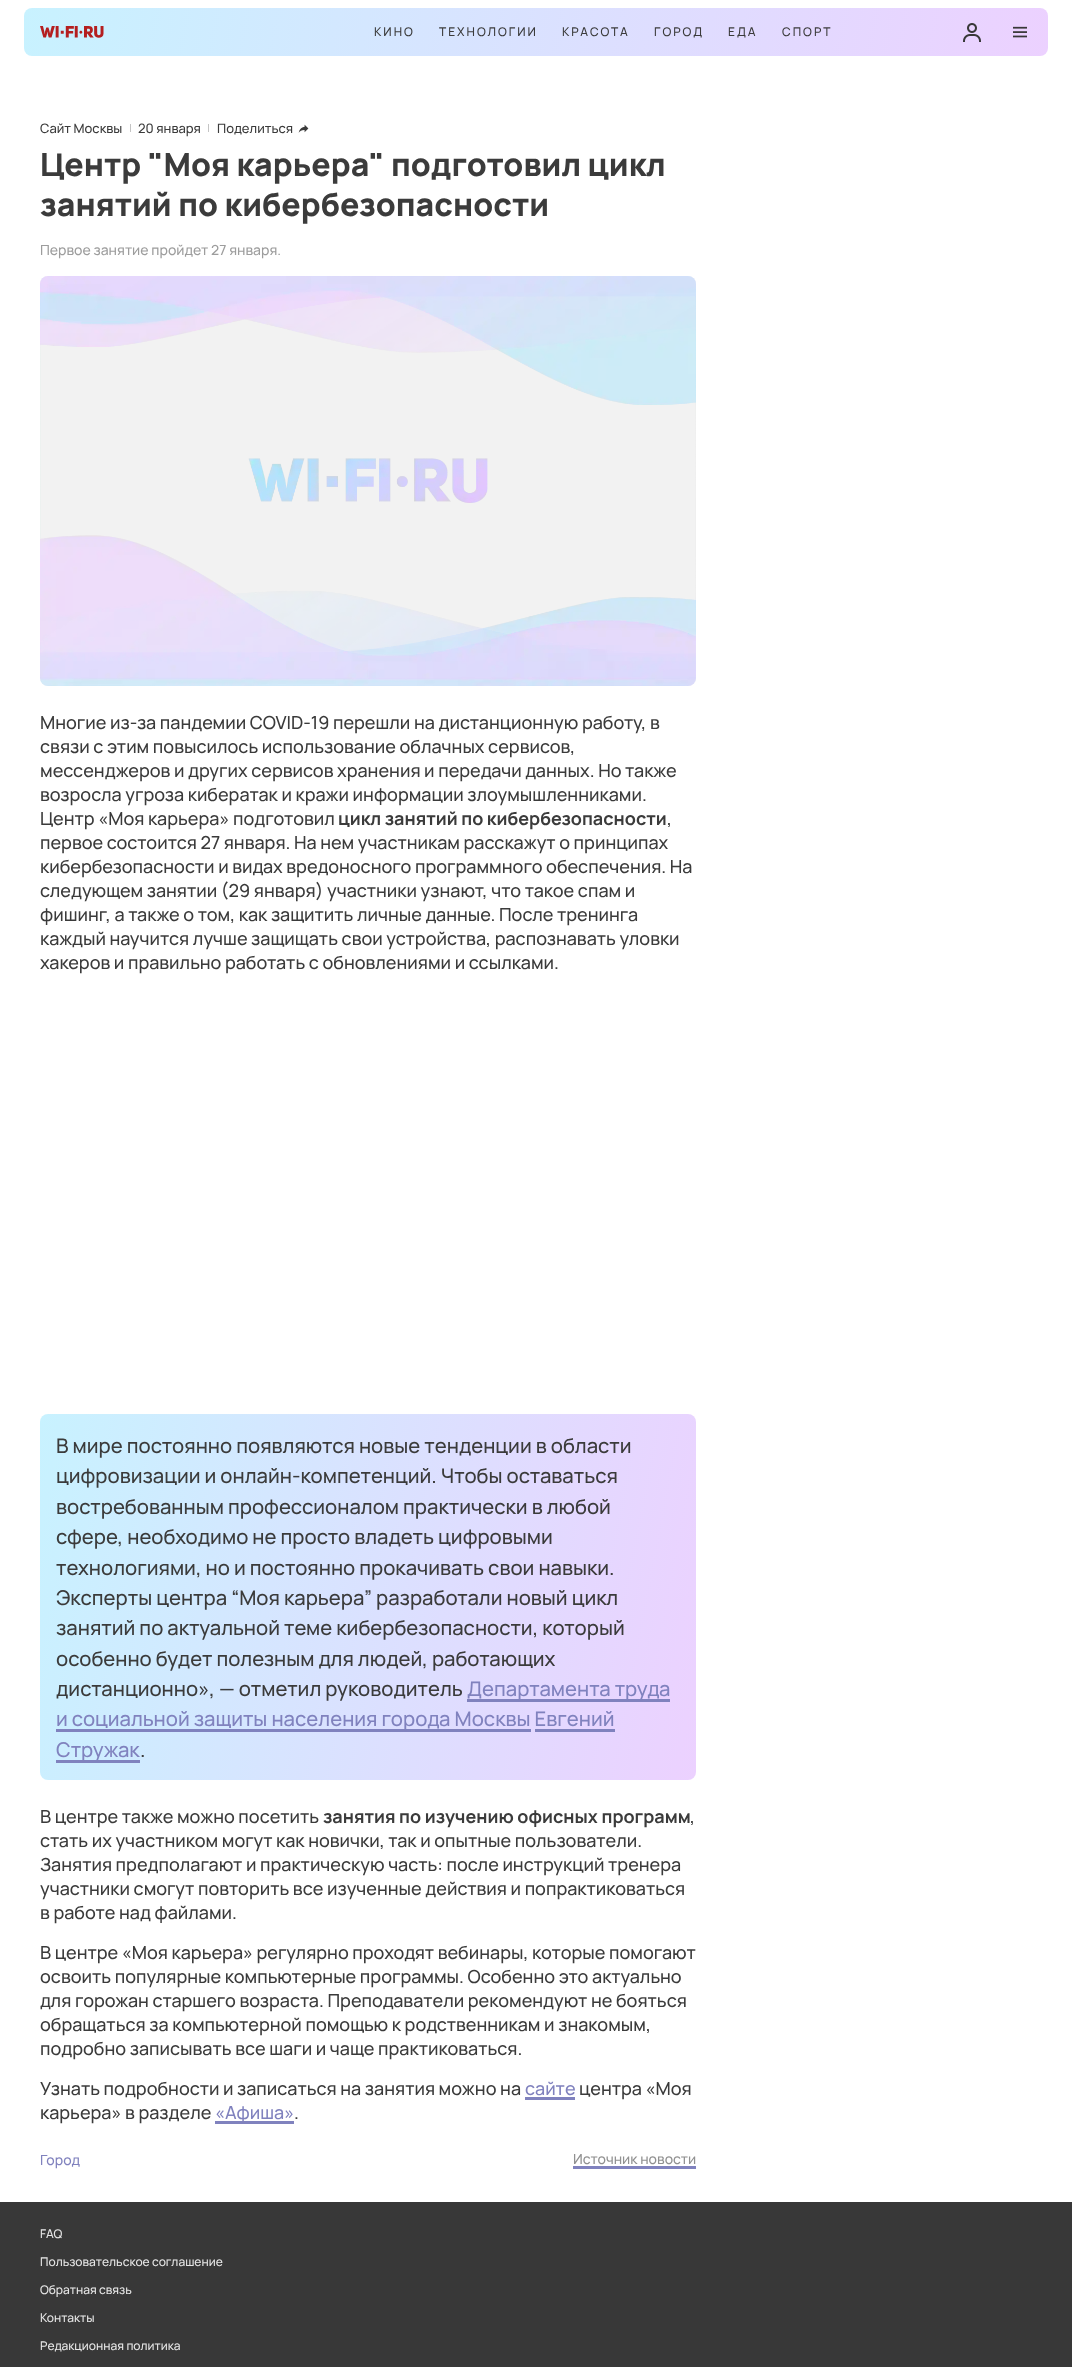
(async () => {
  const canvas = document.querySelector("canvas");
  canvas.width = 1072;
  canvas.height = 2367;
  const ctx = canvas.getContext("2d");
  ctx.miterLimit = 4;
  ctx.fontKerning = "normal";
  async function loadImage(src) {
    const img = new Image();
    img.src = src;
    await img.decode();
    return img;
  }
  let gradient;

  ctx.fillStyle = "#ffffff";
  ctx.fillRect(0, 0, 1072, 2367);
  gradient = ctx.createLinearGradient(38, -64, 1034, 128);
  gradient.addColorStop(0, "#c8f2ff");
  gradient.addColorStop(1, "#ecd1ff");
  ctx.fillStyle = gradient;
  ctx.beginPath();
  ctx.roundRect(24, 8, 1024, 48, 8);
  ctx.fill();
  ctx.drawImage(await loadImage("img/1.png"), 40, 26, 64, 12);
  ctx.drawImage(await loadImage("img/2.png"), 963, 23, 18, 19);
  ctx.drawImage(await loadImage("img/3.png"), 1013, 26, 14, 12);
  ctx.fillStyle = "#c4c4c4";
  ctx.fillRect(130, 124, 1, 8);
  ctx.fillRect(208, 124, 1, 8);
  ctx.drawImage(await loadImage("img/4.png"), 298, 124, 11, 9);
  ctx.fillStyle = "#f2f2f2";
  ctx.beginPath();
  ctx.roundRect(40, 276, 656, 410, 8);
  ctx.fill();
  ctx.drawImage(await loadImage("img/5.png"), 40, 276, 656, 410);
  gradient = ctx.createLinearGradient(18, 1530, 718, 1664);
  gradient.addColorStop(0, "#c8f2ff");
  gradient.addColorStop(1, "#ecd1ff");
  ctx.fillStyle = gradient;
  ctx.beginPath();
  ctx.roundRect(40, 1414, 656, 366, 8);
  ctx.fill();
  for (const [x, y, w, h, color] of [
    [467, 1699, 203, 3, "#8082be"],
    [56, 1729, 475, 3, "#8082be"],
    [535, 1729, 80, 3, "#8082be"],
    [56, 1760, 84, 3, "#8082be"],
    [525, 2097, 50, 3, "#8082be"],
    [215, 2121, 79, 3, "#8082be"],
    [573, 2166, 123, 3, "#8082be"],
    [0, 2202, 1072, 165, "#383838"],
  ]) {
    ctx.fillStyle = color;
    ctx.fillRect(x, y, w, h);
  }
  ctx.letterSpacing = "2px";
  ctx.font = "500 12px Manrope";
  ctx.fillStyle = "#3b3b3b";
  for (const [text, x, y] of [
    ["КИНО", 374, 36],
    ["ТЕХНОЛОГИИ", 439, 36],
    ["КРАСОТА", 562, 36],
    ["ГОРОД", 654, 36],
    ["ЕДА", 728, 36],
    ["СПОРТ", 782, 36],
  ]) {
    ctx.fillText(text, x, y);
  }
  ctx.letterSpacing = "0px";
  ctx.font = "500 13px Manrope";
  for (const [text, x, y] of [
    ["Сайт Москвы", 40, 133],
    ["20 января", 138, 133],
    ["Поделиться", 217, 133],
  ]) {
    ctx.fillText(text, x, y);
  }
  ctx.font = "800 32px Manrope";
  ctx.fillText("Центр \"Моя карьера\" подготовил цикл", 40, 176);
  ctx.fillText("занятий по кибербезопасности", 40, 216);
  ctx.font = "500 14px Manrope";
  ctx.fillStyle = "#9d9d9d";
  ctx.fillText("Первое занятие пройдет 27 января.", 40, 255);
  ctx.font = "500 18px Manrope";
  ctx.fillStyle = "#3b3b3b";
  for (const [text, x, y] of [
    ["Многие из-за пандемии COVID-19 перешли на дистанционную работу, в", 40, 729],
    ["связи с этим повысилось использование облачных сервисов,", 40, 753],
    ["мессенджеров и других сервисов хранения и передачи данных. Но также", 40, 777],
    ["возросла угроза кибератак и кражи информации злоумышленниками.", 40, 801],
    ["Центр «Моя карьера» подготовил", 40, 825],
  ]) {
    ctx.fillText(text, x, y);
  }
  ctx.font = "bold 18px Manrope";
  ctx.fillText("цикл занятий по кибербезопасности", 338, 825);
  ctx.font = "500 18px Manrope";
  for (const [text, x, y] of [
    [",", 667, 825],
    ["первое состоится 27 января. На нем участникам расскажут о принципах", 40, 849],
    ["кибербезопасности и видах вредоносного программного обеспечения. На", 40, 873],
    ["следующем занятии (29 января) участники узнают, что такое спам и", 40, 897],
    ["фишинг, а также о том, как защитить личные данные. После тренинга", 40, 921],
    ["каждый научится лучше защищать свои устройства, распознавать уловки", 40, 945],
    ["хакеров и правильно работать с обновлениями и ссылками.", 40, 969],
  ]) {
    ctx.fillText(text, x, y);
  }
  ctx.font = "500 20.25px Manrope";
  for (const [text, x, y] of [
    ["В мире постоянно появляются новые тенденции в области", 56, 1453],
    ["цифровизации и онлайн-компетенций. Чтобы оставаться", 56, 1483],
    ["востребованным профессионалом практически в любой", 56, 1514],
    ["сфере, необходимо не просто владеть цифровыми", 56, 1544],
    ["технологиями, но и постоянно прокачивать свои навыки.", 56, 1575],
    ["Эксперты центра “Моя карьера” разработали новый цикл", 56, 1605],
    ["занятий по актуальной теме кибербезопасности, который", 56, 1635],
    ["особенно будет полезным для людей, работающих", 56, 1666],
    ["дистанционно», — отметил руководитель", 56, 1696],
  ]) {
    ctx.fillText(text, x, y);
  }
  ctx.fillStyle = "#8082be";
  for (const [text, x, y] of [
    ["Департамента труда", 467, 1696],
    ["и социальной защиты населения города Москвы Евгений", 56, 1726],
    ["Стружак", 56, 1757],
  ]) {
    ctx.fillText(text, x, y);
  }
  ctx.fillStyle = "#3b3b3b";
  ctx.fillText(".", 140, 1757);
  ctx.font = "500 18px Manrope";
  ctx.fillText("В центре также можно посетить", 40, 1823);
  ctx.font = "bold 18px Manrope";
  ctx.fillText("занятия по изучению офисных программ", 323, 1823);
  ctx.font = "500 18px Manrope";
  for (const [text, x, y] of [
    [",", 690, 1823],
    ["стать их участником могут как новички, так и опытные пользователи.", 40, 1847],
    ["Занятия предполагают и практическую часть: после инструкций тренера", 40, 1871],
    ["участники смогут повторить все изученные действия и попрактиковаться", 40, 1895],
    ["в работе над файлами.", 40, 1919],
    ["В центре «Моя карьера» регулярно проходят вебинары, которые помогают", 40, 1959],
    ["освоить популярные компьютерные программы. Особенно это актуально", 40, 1983],
    ["для горожан старшего возраста. Преподаватели рекомендуют не бояться", 40, 2007],
    ["обращаться за компьютерной помощью к родственникам и знакомым,", 40, 2031],
    ["подробно записывать все шаги и чаще практиковаться.", 40, 2055],
    ["Узнать подробности и записаться на занятия можно на", 40, 2095],
  ]) {
    ctx.fillText(text, x, y);
  }
  ctx.fillStyle = "#8082be";
  ctx.fillText("сайте", 525, 2095);
  ctx.fillStyle = "#3b3b3b";
  ctx.fillText("центра «Моя", 579, 2095);
  ctx.fillText("карьера» в разделе", 40, 2119);
  ctx.fillStyle = "#8082be";
  ctx.fillText("«Афиша»", 215, 2119);
  ctx.fillStyle = "#3b3b3b";
  ctx.fillText(".", 294, 2119);
  ctx.font = "500 14px Manrope";
  ctx.fillStyle = "#8082be";
  ctx.fillText("Город", 40, 2165);
  ctx.fillStyle = "#919191";
  ctx.fillText("Источник новости", 573, 2164);
  ctx.font = "500 12px Manrope";
  ctx.fillStyle = "#e6e6e6";
  for (const [text, x, y] of [
    ["FAQ", 40, 2238],
    ["Пользовательское соглашение", 40, 2266],
    ["Обратная связь", 40, 2294],
    ["Контакты", 40, 2322],
    ["Редакционная политика", 40, 2350],
  ]) {
    ctx.fillText(text, x, y);
  }
})();
